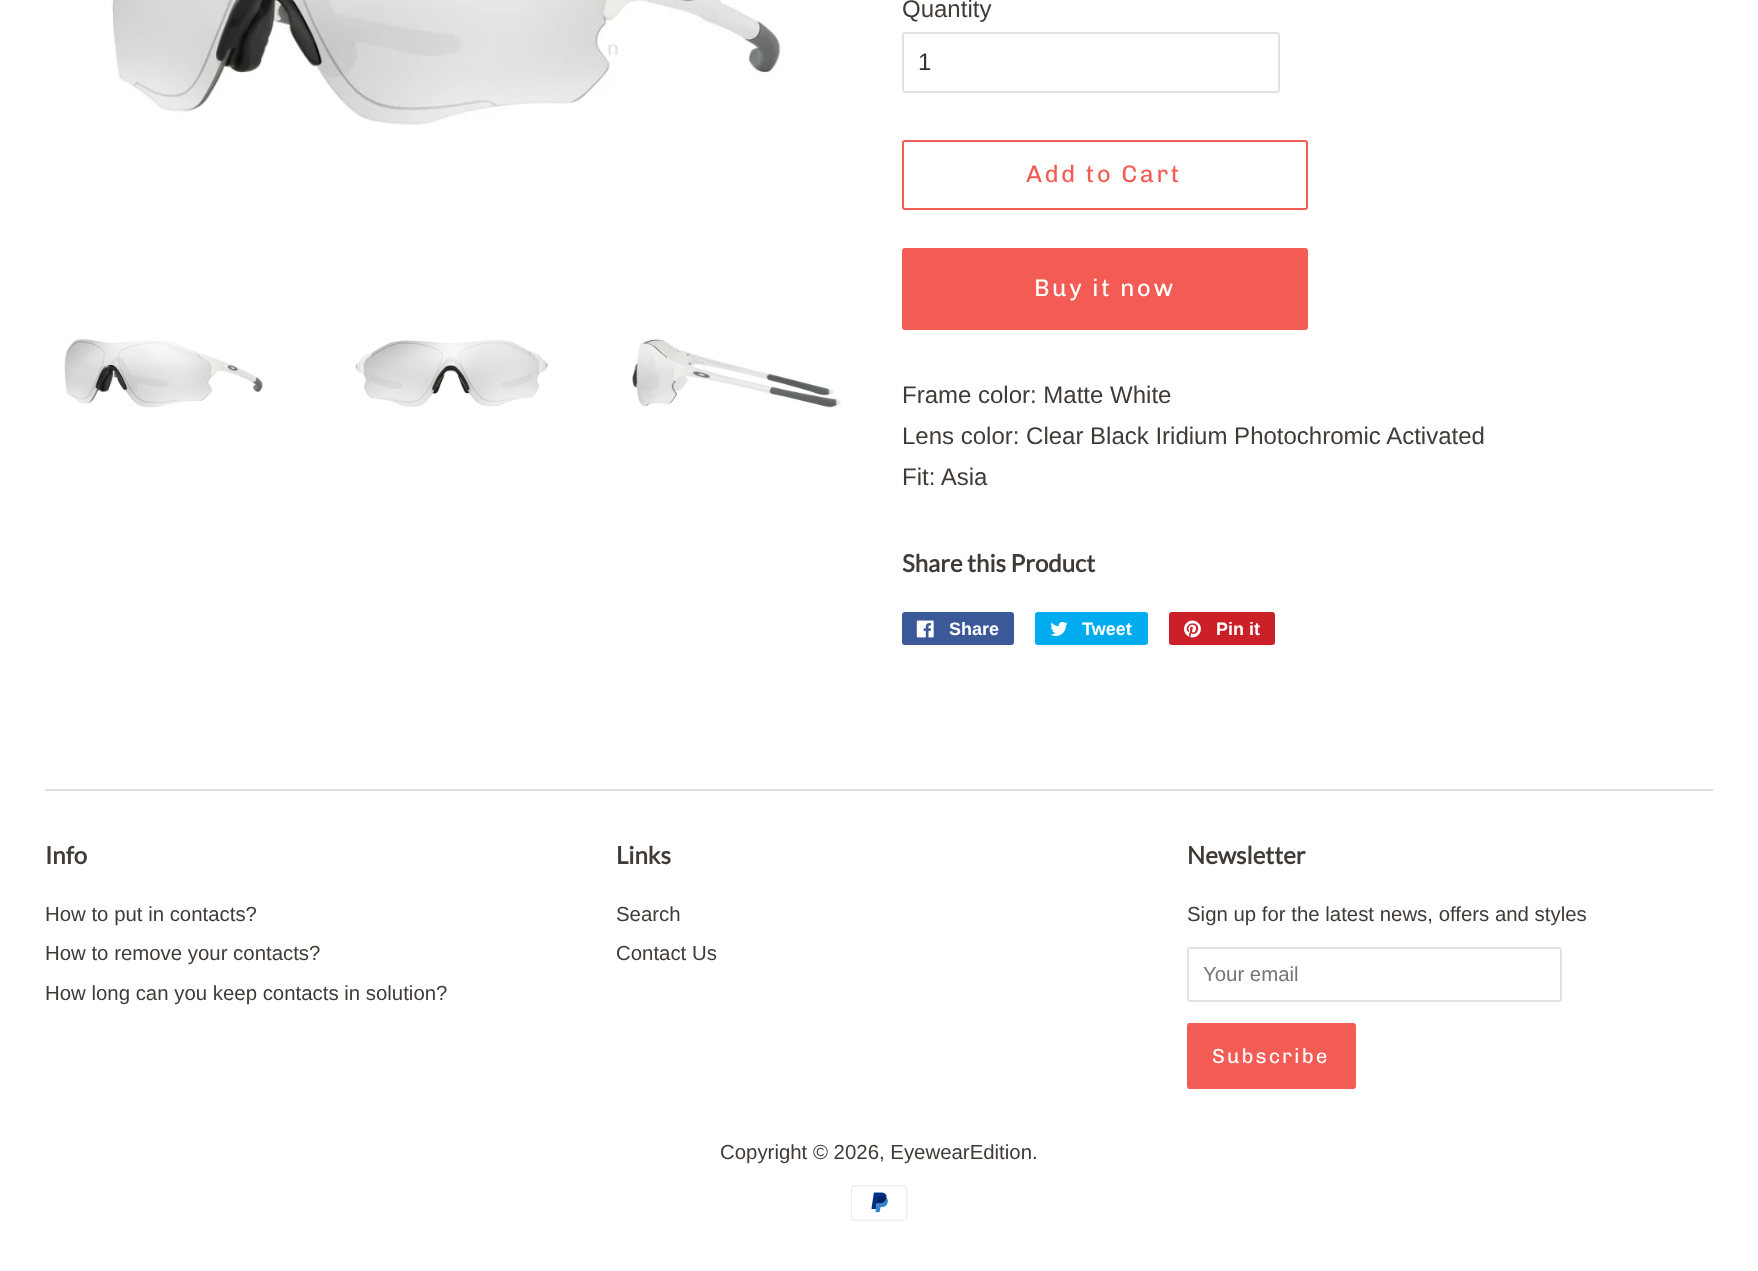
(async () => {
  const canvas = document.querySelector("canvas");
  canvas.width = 1758;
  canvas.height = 1271;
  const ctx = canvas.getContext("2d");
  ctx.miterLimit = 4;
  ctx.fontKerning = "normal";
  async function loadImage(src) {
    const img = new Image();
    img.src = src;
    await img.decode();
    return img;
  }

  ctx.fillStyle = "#ffffff";
  ctx.fillRect(0, 0, 1758, 1271);
  ctx.drawImage(await loadImage("img/1.png"), 111, 0, 671, 125);
  ctx.drawImage(await loadImage("img/2.png"), 64, 339, 199, 69);
  ctx.drawImage(await loadImage("img/3.png"), 355, 340, 193, 67);
  ctx.drawImage(await loadImage("img/4.png"), 632, 339, 209, 69);
  ctx.beginPath();
  ctx.roundRect(903, 33, 376, 59, 2);
  ctx.strokeStyle = "#e2e2e1";
  ctx.lineWidth = 2;
  ctx.stroke();
  ctx.beginPath();
  ctx.roundRect(903, 141, 404, 68, 2);
  ctx.strokeStyle = "#f25c54";
  ctx.stroke();
  ctx.fillStyle = "#f25c54";
  ctx.beginPath();
  ctx.roundRect(902, 248, 406, 82, 3);
  ctx.fill();
  ctx.fillStyle = "#3b5998";
  ctx.beginPath();
  ctx.roundRect(902, 612, 112, 33, 3);
  ctx.fill();
  ctx.drawImage(await loadImage("img/5.png"), 916, 620, 18, 18);
  ctx.fillStyle = "#00aced";
  ctx.beginPath();
  ctx.roundRect(1035, 612, 113, 33, 3);
  ctx.fill();
  ctx.drawImage(await loadImage("img/6.png"), 1050, 621, 18, 15);
  ctx.fillStyle = "#cb2027";
  ctx.beginPath();
  ctx.roundRect(1169, 612, 106, 33, 3);
  ctx.fill();
  ctx.drawImage(await loadImage("img/7.png"), 1184, 620, 17, 18);
  ctx.fillStyle = "#dddddd";
  ctx.fillRect(45, 789, 1668, 2);
  ctx.beginPath();
  ctx.roundRect(1188, 948, 373, 53, 2);
  ctx.strokeStyle = "#e2e2e1";
  ctx.stroke();
  ctx.fillStyle = "#f25c54";
  ctx.beginPath();
  ctx.roundRect(1187, 1023, 169, 66, 3);
  ctx.fill();
  ctx.drawImage(await loadImage("img/8.png"), 851, 1185, 57, 36);
  ctx.letterSpacing = "2.4px";
  ctx.font = "20.4px Chivo";
  ctx.fillStyle = "#e3e3e3";
  ctx.fillText("n", 607, 55);
  ctx.letterSpacing = "0px";
  ctx.font = "24px Arimo";
  ctx.fillStyle = "#403b37";
  ctx.fillText("Quantity", 902, 17);
  ctx.fillStyle = "#333333";
  ctx.fillText("1", 918, 70);
  ctx.letterSpacing = "2.4px";
  ctx.font = "24px Chivo";
  ctx.fillStyle = "#f25c54";
  ctx.fillText("Add to Cart", 1026, 182);
  ctx.fillStyle = "#ffffff";
  ctx.fillText("Buy it now", 1034, 296);
  ctx.letterSpacing = "0px";
  ctx.font = "24px Arimo";
  ctx.fillStyle = "#403b37";
  for (const [text, x, y] of [
    ["Frame color: Matte White", 902, 403],
    ["Lens color: Clear Black Iridium Photochromic Activated", 902, 444],
    ["Fit: Asia", 902, 485],
  ]) {
    ctx.fillText(text, x, y);
  }
  ctx.font = "bold 24px Lato";
  ctx.fillText("Share this Product", 902, 572);
  ctx.font = "bold 18px Liberation Sans";
  ctx.fillStyle = "#ffffff";
  for (const [text, x, y] of [
    ["Share", 949, 635],
    ["Tweet", 1082, 635],
    ["Pin it", 1216, 635],
  ]) {
    ctx.fillText(text, x, y);
  }
  ctx.font = "bold 24px Lato";
  ctx.fillStyle = "#403b37";
  ctx.fillText("Info", 45, 864);
  ctx.font = "20.4px Arimo";
  for (const [text, x, y] of [
    ["How to put in contacts?", 45, 921],
    ["How to remove your contacts?", 45, 960],
    ["How long can you keep contacts in solution?", 45, 1000],
  ]) {
    ctx.fillText(text, x, y);
  }
  ctx.font = "bold 24px Lato";
  ctx.fillText("Links", 616, 864);
  ctx.font = "20.4px Arimo";
  ctx.fillText("Search", 616, 921);
  ctx.fillText("Contact Us", 616, 960);
  ctx.font = "bold 24px Lato";
  ctx.fillText("Newsletter", 1187, 864);
  ctx.font = "20.4px Arimo";
  ctx.fillText("Sign up for the latest news, offers and styles", 1187, 921);
  ctx.fillStyle = "#757575";
  ctx.fillText("Your email", 1203, 981);
  ctx.letterSpacing = "2px";
  ctx.font = "20.4px Chivo";
  ctx.fillStyle = "#ffffff";
  ctx.fillText("Subscribe", 1212, 1063);
  ctx.letterSpacing = "0px";
  ctx.font = "20.4px Arimo";
  ctx.fillStyle = "#403b37";
  ctx.fillText("Copyright © 2026, EyewearEdition.", 720, 1159);
})();
